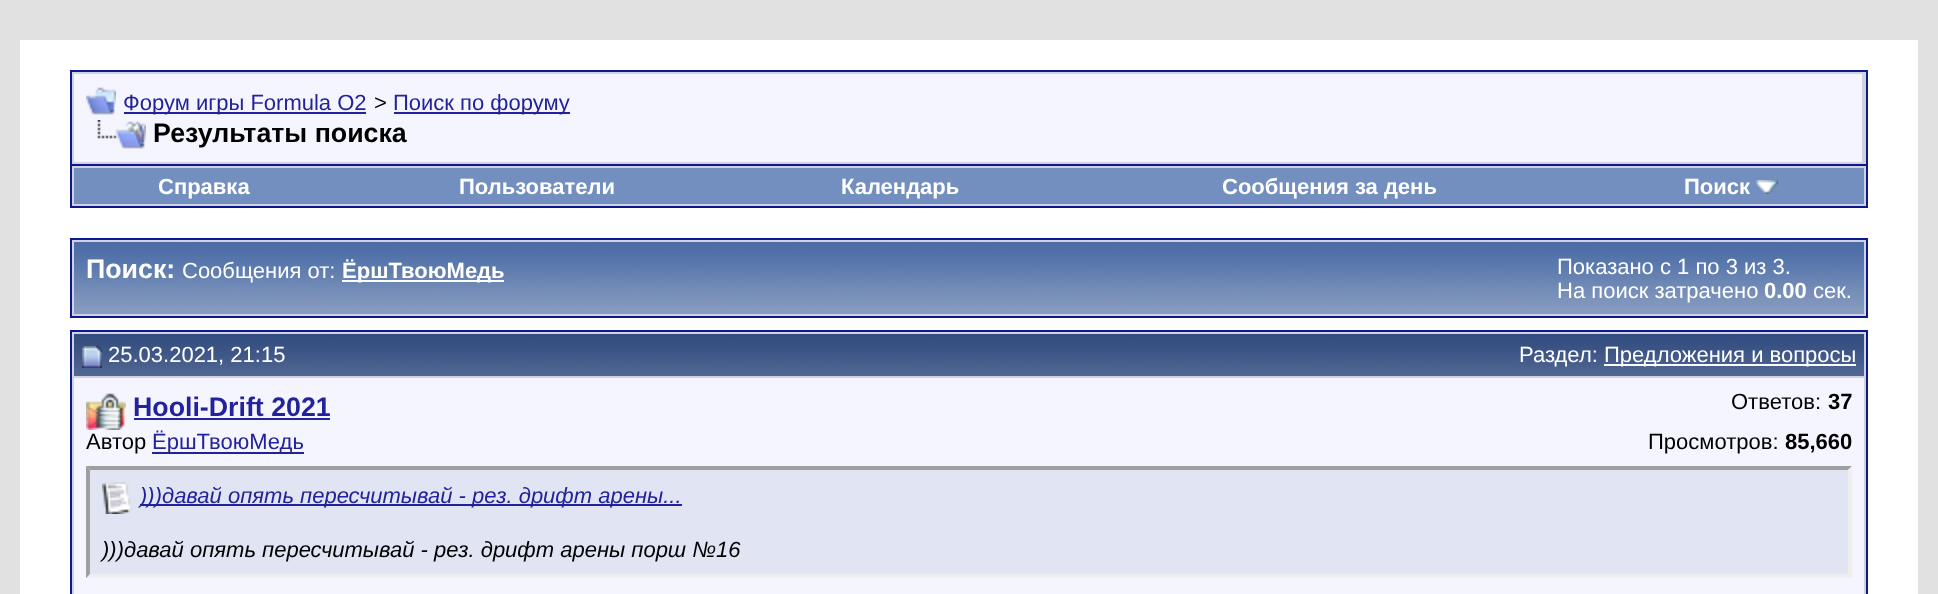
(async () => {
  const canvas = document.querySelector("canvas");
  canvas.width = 1938;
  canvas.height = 594;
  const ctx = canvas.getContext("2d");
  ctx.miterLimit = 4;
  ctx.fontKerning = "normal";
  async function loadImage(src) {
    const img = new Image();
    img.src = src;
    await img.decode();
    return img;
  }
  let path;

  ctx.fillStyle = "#e1e1e2";
  ctx.fillRect(0, 0, 1938, 594);
  ctx.fillStyle = "#ffffff";
  ctx.fillRect(20, 40, 1898, 554);
  ctx.fillStyle = "#d1d1e1";
  ctx.beginPath();
  ctx.rect(71, 71, 1796, 94);
  ctx.fill();
  ctx.strokeStyle = "#0b198c";
  ctx.lineWidth = 2;
  ctx.stroke();
  ctx.fillStyle = "#f5f5ff";
  ctx.fillRect(74, 74, 1788, 88);
  ctx.drawImage(await loadImage("img/1.png"), 86, 87, 30, 28);
  ctx.fillStyle = "#22229c";
  ctx.fillRect(124, 112, 242, 2);
  ctx.fillRect(394, 112, 176, 2);
  ctx.drawImage(await loadImage("img/2.png"), 97, 120, 49, 29);
  for (const [x, y, w, h, color] of [
    [72, 166, 1794, 40, "#d1d1e1"],
    [1866, 166, 2, 42, "#0b198c"],
    [70, 206, 1798, 2, "#0b198c"],
    [70, 166, 2, 42, "#0b198c"],
    [74, 168, 1790, 36, "#738fbf"],
  ]) {
    ctx.fillStyle = color;
    ctx.fillRect(x, y, w, h);
  }
  ctx.drawImage(await loadImage("img/3.png"), 1756, 180, 22, 14);
  ctx.fillStyle = "#d1d1e1";
  ctx.beginPath();
  ctx.rect(71, 239, 1796, 78);
  ctx.fill();
  ctx.stroke();
  ctx.fillStyle = "#869bbf";
  ctx.fillRect(74, 307, 1790, 7);
  ctx.drawImage(await loadImage("img/4.png"), 74, 242, 1790, 65);
  ctx.fillStyle = "#ffffff";
  ctx.fillRect(342, 280, 162, 2);
  ctx.fillStyle = "#d1d1e1";
  ctx.beginPath();
  ctx.rect(71, 331, 1796, 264);
  ctx.fill();
  ctx.stroke();
  ctx.drawImage(await loadImage("img/5.png"), 74, 334, 1790, 42);
  ctx.drawImage(await loadImage("img/6.png"), 82, 346, 20, 22);
  ctx.fillStyle = "#ffffff";
  ctx.fillRect(1604, 364, 252, 2);
  ctx.fillStyle = "#f5f5ff";
  ctx.fillRect(74, 378, 1790, 216);
  ctx.drawImage(await loadImage("img/7.png"), 86, 393, 40, 37);
  for (const [x, y, w, h, color] of [
    [134, 418, 196, 2, "#22229c"],
    [152, 452, 152, 2, "#22229c"],
    [86, 466, 1766, 112, "#e1e4f2"],
  ]) {
    ctx.fillStyle = color;
    ctx.fillRect(x, y, w, h);
  }
  ctx.fillStyle = "#9f9f9f";
  path = new Path2D("M86 466H1852L1848 470H90Z");
  ctx.fill(path);
  ctx.fillStyle = "#eeeeee";
  path = new Path2D("M1852 466V578L1848 574V470Z");
  ctx.fill(path);
  path = new Path2D("M1852 578H86L90 574H1848Z");
  ctx.fill(path);
  ctx.fillStyle = "#9f9f9f";
  path = new Path2D("M86 578V466L90 470V574Z");
  ctx.fill(path);
  ctx.drawImage(await loadImage("img/8.png"), 102, 482, 30, 32);
  ctx.fillStyle = "#22229c";
  ctx.fillRect(140, 504, 542, 2);
  ctx.font = "22px Liberation Sans";
  ctx.fillText("Форум игры Formula O2", 123, 110);
  ctx.fillStyle = "#000000";
  ctx.fillText(">", 374, 110);
  ctx.fillStyle = "#22229c";
  ctx.fillText("Поиск по форуму", 393, 110);
  ctx.font = "bold 26.75px Liberation Sans";
  ctx.fillStyle = "#000000";
  ctx.fillText("Результаты поиска", 153, 142);
  ctx.font = "bold 22px Liberation Sans";
  ctx.fillStyle = "#ffffff";
  for (const [text, x, y] of [
    ["Справка", 158, 194],
    ["Пользователи", 459, 194],
    ["Календарь", 841, 194],
    ["Сообщения за день", 1222, 194],
    ["Поиск", 1684, 194],
  ]) {
    ctx.fillText(text, x, y);
  }
  ctx.font = "bold 26.75px Liberation Sans";
  ctx.fillText("Поиск:", 86, 278);
  ctx.font = "22px Liberation Sans";
  ctx.fillText("Сообщения от:", 182, 278);
  ctx.font = "bold 22px Liberation Sans";
  ctx.fillText("ЁршТвоюМедь", 342, 278);
  ctx.font = "22px Liberation Sans";
  ctx.fillText("Показано с 1 по 3 из 3.", 1557, 274);
  ctx.fillText("На поиск затрачено", 1557, 298);
  ctx.font = "bold 22px Liberation Sans";
  ctx.fillText("0.00", 1764, 298);
  ctx.font = "22px Liberation Sans";
  for (const [text, x, y] of [
    ["сек.", 1813, 298],
    ["25.03.2021, 21:15", 108, 362],
    ["Раздел:", 1519, 362],
    ["Предложения и вопросы", 1604, 362],
  ]) {
    ctx.fillText(text, x, y);
  }
  ctx.font = "bold 26.75px Liberation Sans";
  ctx.fillStyle = "#22229c";
  ctx.fillText("Hooli-Drift 2021", 133, 416);
  ctx.font = "22px Liberation Sans";
  ctx.fillStyle = "#000000";
  ctx.fillText("Ответов:", 1731, 409);
  ctx.font = "bold 22px Liberation Sans";
  ctx.fillText("37", 1828, 409);
  ctx.font = "22px Liberation Sans";
  ctx.fillText("Автор", 86, 449);
  ctx.fillStyle = "#22229c";
  ctx.fillText("ЁршТвоюМедь", 152, 449);
  ctx.fillStyle = "#000000";
  ctx.fillText("Просмотров:", 1648, 449);
  ctx.font = "bold 22px Liberation Sans";
  ctx.fillText("85,660", 1785, 449);
  ctx.font = "italic 22px Liberation Sans";
  ctx.fillStyle = "#22229c";
  ctx.fillText(")))давай опять пересчитывай - рез. дрифт арены...", 140, 503);
  ctx.fillStyle = "#000000";
  ctx.fillText(")))давай опять пересчитывай - рез. дрифт арены порш №16", 102, 557);
})();
